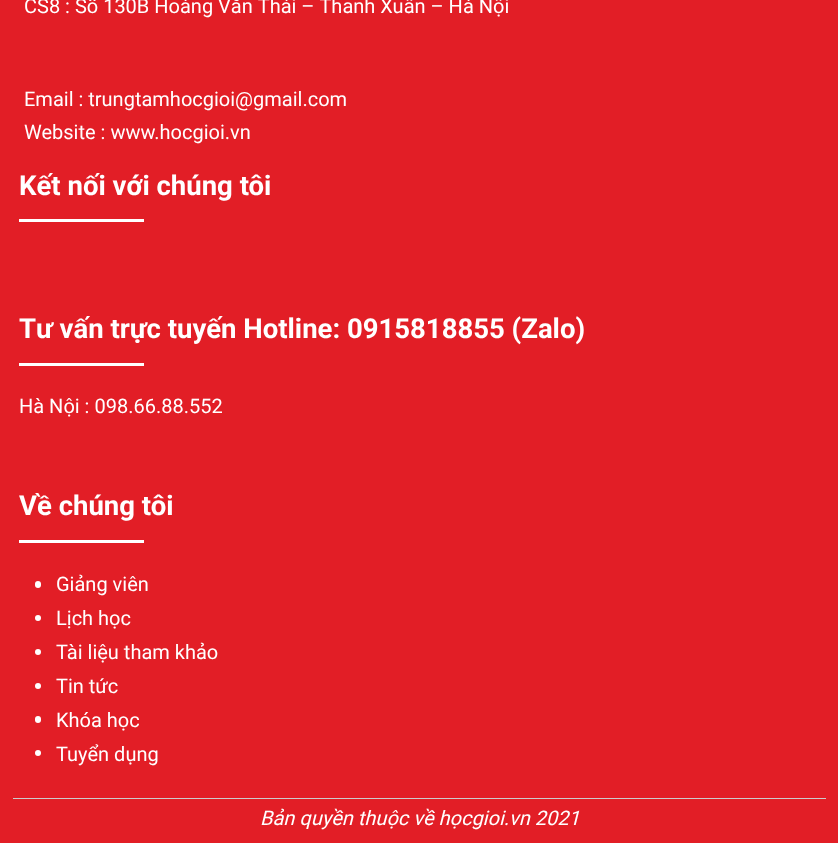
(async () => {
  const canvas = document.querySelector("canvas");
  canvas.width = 838;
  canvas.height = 843;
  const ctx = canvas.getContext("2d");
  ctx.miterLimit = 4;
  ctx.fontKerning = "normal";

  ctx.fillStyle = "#e21e26";
  ctx.fillRect(0, 0, 838, 843);
  for (const [x, y, w, h, color] of [
    [19, 219, 125, 3, "#ffffff"],
    [19, 363, 125, 3, "#ffffff"],
    [19, 540, 125, 3, "#ffffff"],
  ]) {
    ctx.fillStyle = color;
    ctx.fillRect(x, y, w, h);
  }
  ctx.beginPath();
  ctx.roundRect(35, 581, 6, 7, 3);
  ctx.fill();
  ctx.beginPath();
  ctx.arc(38, 618, 3, 0, Math.PI * 2);
  ctx.fill();
  ctx.beginPath();
  ctx.arc(38, 652, 3, 0, Math.PI * 2);
  ctx.fill();
  ctx.beginPath();
  ctx.arc(38, 686, 3, 0, Math.PI * 2);
  ctx.fill();
  ctx.beginPath();
  ctx.roundRect(35, 716, 6, 7, 3);
  ctx.fill();
  ctx.beginPath();
  ctx.arc(38, 753, 3, 0, Math.PI * 2);
  ctx.fill();
  ctx.fillStyle = "#cccccc";
  ctx.fillRect(13, 798, 813, 1);
  ctx.font = "20px Roboto";
  ctx.fillStyle = "#ffffff";
  for (const [text, x, y] of [
    ["CS8 : Số 130B Hoàng Văn Thái – Thanh Xuân – Hà Nội", 24, 13],
    ["Email : trungtamhocgioi@gmail.com", 24, 106],
    ["Website : www.hocgioi.vn", 24, 139],
  ]) {
    ctx.fillText(text, x, y);
  }
  ctx.font = "bold 27.5px Roboto";
  ctx.fillText("Kết nối với chúng tôi", 19, 195);
  ctx.fillText("Tư vấn trực tuyến Hotline: 0915818855 (Zalo)", 19, 338);
  ctx.font = "20px Roboto";
  ctx.fillText("Hà Nội : 098.66.88.552", 19, 413);
  ctx.font = "bold 27.5px Roboto";
  ctx.fillText("Về chúng tôi", 19, 515);
  ctx.font = "20px Roboto";
  for (const [text, x, y] of [
    ["Giảng viên", 56, 591],
    ["Lịch học", 56, 625],
    ["Tài liệu tham khảo", 56, 659],
    ["Tin tức", 56, 693],
    ["Khóa học", 56, 727],
    ["Tuyển dụng", 56, 761],
  ]) {
    ctx.fillText(text, x, y);
  }
  ctx.font = "italic 20px Roboto";
  ctx.fillText("Bản quyền thuộc về họcgioi.vn 2021", 260, 825);
})();
